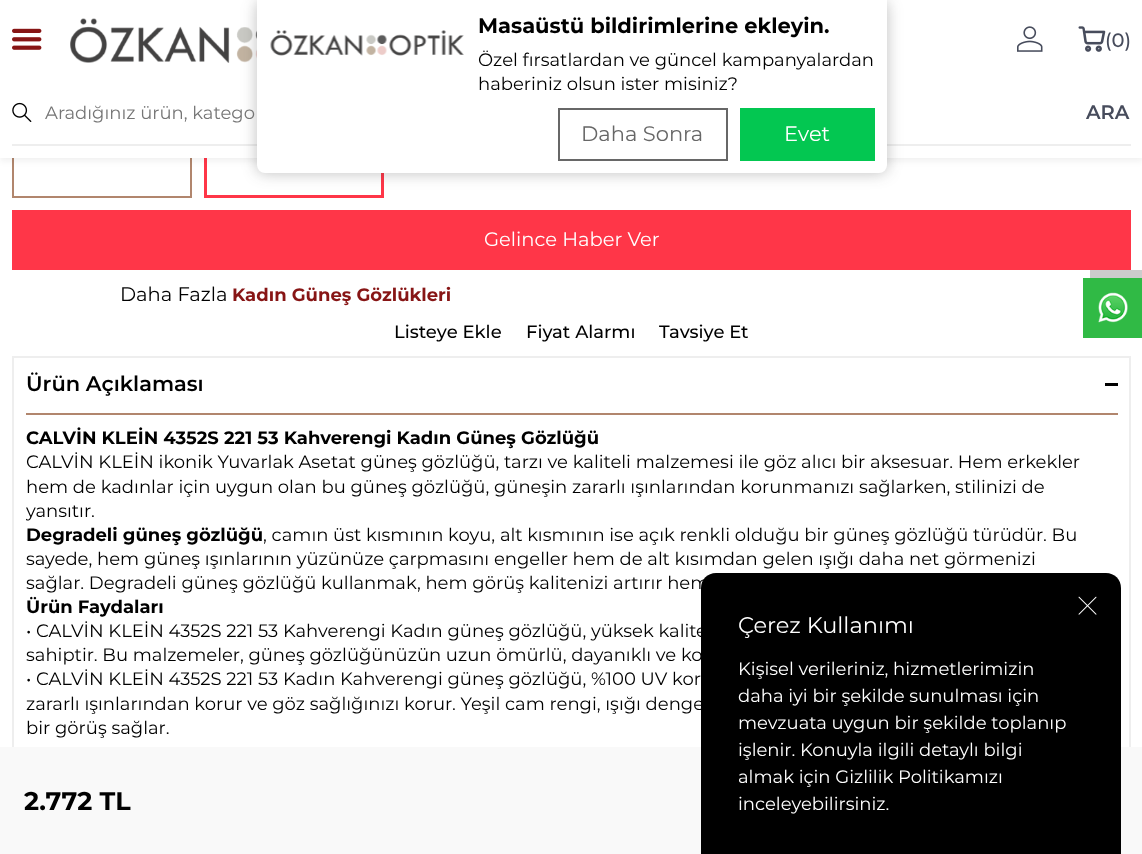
(async () => {
  const canvas = document.querySelector("canvas");
  canvas.width = 1142;
  canvas.height = 854;
  const ctx = canvas.getContext("2d");
  ctx.miterLimit = 4;
  ctx.fontKerning = "normal";
  async function loadImage(src) {
    const img = new Image();
    img.src = src;
    await img.decode();
    return img;
  }
  let path;

  ctx.fillStyle = "#ffffff";
  ctx.fillRect(0, 0, 1142, 854);
  ctx.strokeStyle = "#b1866d";
  ctx.lineWidth = 2;
  ctx.strokeRect(13, 19, 178, 178);
  ctx.strokeStyle = "#ff3648";
  ctx.lineWidth = 3;
  ctx.strokeRect(205.5, 19.5, 177, 177);
  ctx.fillStyle = "rgba(0, 0, 0, 0.06)";
  ctx.filter = "blur(3px)";
  ctx.beginPath();
  ctx.rect(0, 3, 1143, 158);
  ctx.fill();
  ctx.filter = "none";
  ctx.fillStyle = "#ffffff";
  ctx.fillRect(0, 0, 1142, 158);
  ctx.drawImage(await loadImage("img/3.png"), 70, 18, 187, 45);
  ctx.fillStyle = "#eeeeee";
  ctx.fillRect(12, 144, 1119, 2);
  ctx.fillStyle = "rgba(40, 40, 40, 0.3)";
  ctx.filter = "blur(7.5px)";
  ctx.beginPath();
  ctx.roundRect(257, 0, 630, 173, 8);
  ctx.fill();
  ctx.filter = "none";
  ctx.fillStyle = "#ffffff";
  ctx.beginPath();
  ctx.roundRect(257, 0, 630, 173, [0, 0, 8, 8]);
  ctx.fill();
  ctx.drawImage(await loadImage("img/1.png"), 270, 30, 194, 26);
  ctx.strokeStyle = "#676767";
  ctx.lineWidth = 2;
  ctx.strokeRect(559, 109, 168, 51);
  ctx.fillStyle = "#03c751";
  ctx.fillRect(740, 108, 135, 53);
  ctx.drawImage(await loadImage("img/2.png"), 12, 28, 30, 22);
  ctx.drawImage(await loadImage("img/4.png"), 1017, 26, 26, 26);
  ctx.drawImage(await loadImage("img/5.png"), 1078, 26, 28, 26);
  ctx.drawImage(await loadImage("img/6.png"), 12, 102, 20, 20);
  ctx.fillStyle = "#ff3648";
  ctx.fillRect(12, 210, 1119, 60);
  ctx.strokeStyle = "#eeeeee";
  ctx.strokeRect(13, 357, 1117, 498);
  for (const [x, y, w, h, color] of [
    [0, 747, 1142, 107, "#f9f9f9"],
    [26, 413, 1092, 2, "#b1866d"],
    [1105, 383, 13, 3, "#000000"],
  ]) {
    ctx.fillStyle = color;
    ctx.fillRect(x, y, w, h);
  }
  ctx.fillStyle = "#cccccc";
  path = new Path2D("M1090 270V278H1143V330H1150V270Z");
  ctx.fill(path);
  ctx.fillStyle = "#30ba45";
  ctx.fillRect(1083, 278, 59, 60);
  ctx.drawImage(await loadImage("img/7.png"), 1098, 292, 30, 31);
  ctx.fillStyle = "#000000";
  path = new Path2D("M716 573H1106C1114.5 573 1121 579.5 1121 588V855H701V588C701 579.5 707.5 573 716 573Z");
  ctx.fill(path);
  ctx.drawImage(await loadImage("img/8.png"), 1078, 596, 19, 19);
  ctx.font = "bold 21px Montserrat";
  ctx.fillText("Masaüstü bildirimlerine ekleyin.", 478, 33);
  ctx.font = "18px Montserrat";
  ctx.fillText("Özel fırsatlardan ve güncel kampanyalardan", 478, 66);
  ctx.fillText("haberiniz olsun ister misiniz?", 478, 90);
  ctx.font = "21px Montserrat";
  ctx.fillStyle = "#676767";
  ctx.fillText("Daha Sonra", 581, 141);
  ctx.fillStyle = "#ffffff";
  ctx.fillText("Evet", 784, 141);
  ctx.font = "500 19.5px Montserrat";
  ctx.fillStyle = "#474c5c";
  ctx.fillText("(0)", 1105, 47);
  ctx.font = "18px Montserrat";
  ctx.fillStyle = "#757575";
  ctx.fillText("Aradığınız ürün, katego", 45, 119);
  ctx.font = "600 19.5px Montserrat";
  ctx.fillStyle = "#474c5c";
  ctx.fillText("ARA", 1086, 119);
  ctx.font = "19.5px Montserrat";
  ctx.fillStyle = "#ffffff";
  ctx.fillText("Gelince Haber Ver", 484, 246);
  ctx.font = "bold 25.5px Montserrat";
  ctx.fillStyle = "#000000";
  ctx.fillText("2.772 TL", 24, 810);
  ctx.font = "19.5px Montserrat";
  ctx.fillText("Daha Fazla", 120, 301);
  ctx.font = "bold 18px Montserrat";
  ctx.fillStyle = "#871515";
  ctx.fillText("Kadın Güneş Gözlükleri", 232, 301);
  ctx.font = "500 18px Montserrat";
  ctx.fillStyle = "#000000";
  for (const [text, x, y] of [
    ["Listeye Ekle", 394, 338],
    ["Fiyat Alarmı", 526, 338],
    ["Tavsiye Et", 659, 338],
  ]) {
    ctx.fillText(text, x, y);
  }
  ctx.font = "600 21px Montserrat";
  ctx.fillText("Ürün Açıklaması", 26, 391);
  ctx.font = "bold 18px Montserrat";
  ctx.fillText("CALVİN KLEİN 4352S 221 53 Kahverengi Kadın Güneş Gözlüğü", 26, 444);
  ctx.font = "18px Montserrat";
  ctx.fillText("CALVİN KLEİN ikonik Yuvarlak Asetat güneş gözlüğü, tarzı ve kaliteli malzemesi ile göz alıcı bir aksesuar. Hem erkekler", 26, 468);
  ctx.fillText("hem de kadınlar için uygun olan bu güneş gözlüğü, güneşin zararlı ışınlarından korunmanızı sağlarken, stilinizi de", 26, 493);
  ctx.save();
  ctx.beginPath();
  ctx.rect(26, 426, 1092, 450);
  ctx.clip();
  ctx.fillText("yansıtır.", 26, 517);
  ctx.restore();
  ctx.font = "bold 18px Montserrat";
  ctx.fillText("Degradeli güneş gözlüğü", 26, 541);
  ctx.font = "18px Montserrat";
  for (const [text, x, y] of [
    [", camın üst kısmının koyu, alt kısmının ise açık renkli olduğu bir güneş gözlüğü türüdür. Bu", 263, 541],
    ["sayede, hem güneş ışınlarının yüzünüze çarpmasını engeller hem de alt kısımdan gelen ışığı daha net görmenizi", 26, 565],
    ["sağlar. Degradeli güneş gözlüğü kullanmak, hem görüş kalitenizi artırır hem", 26, 589],
  ]) {
    ctx.fillText(text, x, y);
  }
  ctx.font = "bold 18px Montserrat";
  ctx.fillText("Ürün Faydaları", 26, 613);
  ctx.font = "18px Montserrat";
  for (const [text, x, y] of [
    ["• CALVİN KLEİN 4352S 221 53 Kahverengi Kadın güneş gözlüğü, yüksek kalite", 26, 637],
    ["sahiptir. Bu malzemeler, güneş gözlüğünüzün uzun ömürlü, dayanıklı ve ko", 26, 661],
    ["• CALVİN KLEİN 4352S 221 53 Kadın Kahverengi güneş gözlüğü, %100 UV kor", 26, 685],
    ["zararlı ışınlarından korur ve göz sağlığınızı korur. Yeşil cam rengi, ışığı denge", 26, 710],
    ["bir görüş sağlar.", 26, 734],
  ]) {
    ctx.fillText(text, x, y);
  }
  ctx.font = "22.5px Montserrat";
  ctx.fillStyle = "#ffffff";
  ctx.fillText("Çerez Kullanımı", 738, 633);
  ctx.font = "18px Montserrat";
  for (const [text, x, y] of [
    ["Kişisel verileriniz, hizmetlerimizin", 738, 675],
    ["daha iyi bir şekilde sunulması için", 738, 702],
    ["mevzuata uygun bir şekilde toplanıp", 738, 729],
    ["işlenir. Konuyla ilgili detaylı bilgi", 738, 756],
    ["almak için Gizlilik Politikamızı", 738, 783],
    ["inceleyebilirsiniz.", 738, 810],
  ]) {
    ctx.fillText(text, x, y);
  }
})();
